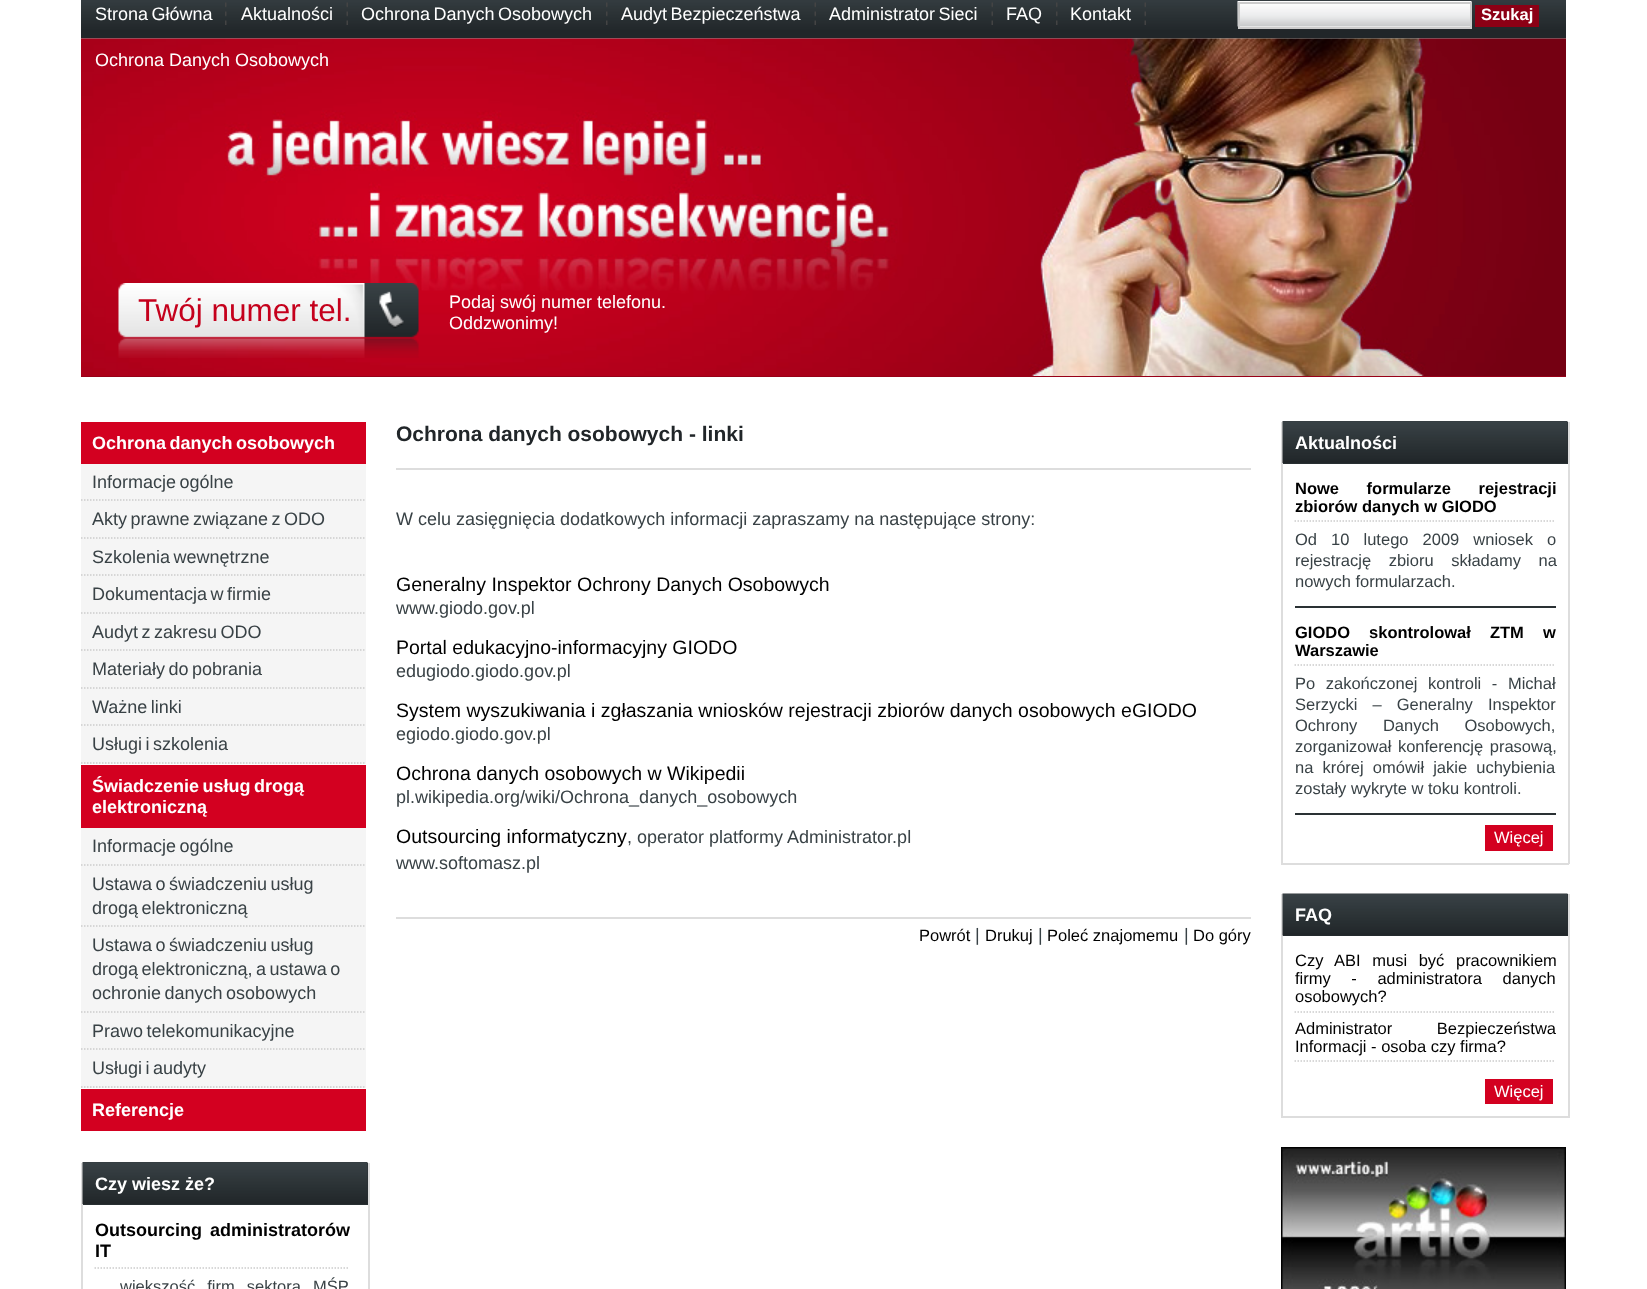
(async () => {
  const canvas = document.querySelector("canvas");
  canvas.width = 1647;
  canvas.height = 1289;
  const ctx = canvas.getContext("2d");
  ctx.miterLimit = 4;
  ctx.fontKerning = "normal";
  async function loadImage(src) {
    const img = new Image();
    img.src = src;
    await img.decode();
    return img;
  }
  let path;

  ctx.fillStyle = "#ffffff";
  ctx.fillRect(0, 0, 1647, 1289);
  ctx.drawImage(await loadImage("img/1.png"), 81, 0, 1485, 39);
  ctx.drawImage(await loadImage("img/2.png"), 225, 2, 2, 23);
  ctx.drawImage(await loadImage("img/3.png"), 346, 2, 2, 23);
  ctx.drawImage(await loadImage("img/2.png"), 606, 2, 2, 23);
  ctx.drawImage(await loadImage("img/3.png"), 814, 2, 2, 23);
  ctx.drawImage(await loadImage("img/3.png"), 991, 2, 2, 23);
  ctx.drawImage(await loadImage("img/2.png"), 1056, 2, 2, 23);
  ctx.drawImage(await loadImage("img/3.png"), 1144, 2, 2, 23);
  ctx.fillRect(1240, 26, 230, 1);
  ctx.drawImage(await loadImage("img/4.png"), 1237, 1, 235, 26);
  ctx.strokeStyle = "#cccccc";
  ctx.lineWidth = 2;
  ctx.strokeRect(1239, 3, 232, 25);
  ctx.fillStyle = "#8c0015";
  ctx.fillRect(1475, 5, 64, 22);
  ctx.fillStyle = "#980017";
  ctx.fillRect(81, 376, 1485, 1);
  ctx.drawImage(await loadImage("img/5.png"), 81, 38, 1485, 338);
  ctx.drawImage(await loadImage("img/6.png"), 118, 283, 301, 75);
  ctx.fillStyle = "#d30020";
  ctx.fillRect(81, 422, 285, 42);
  ctx.fillStyle = "#f5f5f5";
  ctx.fillRect(81, 464, 285, 300);
  path = new Path2D("M81 500H366");
  ctx.lineWidth = 1.5;
  ctx.setLineDash([1.5, 1.5]);
  ctx.stroke(path);
  path = new Path2D("M81 538H366");
  ctx.stroke(path);
  path = new Path2D("M81 575H366");
  ctx.stroke(path);
  path = new Path2D("M81 613H366");
  ctx.stroke(path);
  path = new Path2D("M81 650H366");
  ctx.stroke(path);
  path = new Path2D("M81 688H366");
  ctx.stroke(path);
  path = new Path2D("M81 725H366");
  ctx.stroke(path);
  path = new Path2D("M81 763H366");
  ctx.stroke(path);
  ctx.fillStyle = "#d30020";
  ctx.fillRect(81, 765, 285, 63);
  ctx.fillStyle = "#f5f5f5";
  ctx.fillRect(81, 828, 285, 260);
  path = new Path2D("M81 865H366");
  ctx.stroke(path);
  path = new Path2D("M81 926H366");
  ctx.stroke(path);
  path = new Path2D("M81 1012H366");
  ctx.stroke(path);
  path = new Path2D("M81 1049H366");
  ctx.stroke(path);
  path = new Path2D("M81 1087H366");
  ctx.stroke(path);
  for (const [x, y, w, h, color] of [
    [81, 1089, 285, 42, "#d30020"],
    [368, 1163, 2, 126, "#dddddd"],
    [81, 1163, 2, 126, "#dddddd"],
    [83, 1163, 285, 42, "#282f32"],
  ]) {
    ctx.fillStyle = color;
    ctx.fillRect(x, y, w, h);
  }
  ctx.drawImage(await loadImage("img/7.png"), 82, 1162, 286, 42);
  path = new Path2D("M94.5 1268H349.5");
  ctx.stroke(path);
  for (const [x, y, w, h, color] of [
    [396, 468, 855, 2, "#dddddd"],
    [396, 917, 855, 2, "#dddddd"],
    [1568, 422, 2, 442, "#dddddd"],
    [1281, 863, 288, 2, "#dddddd"],
    [1281, 422, 2, 442, "#dddddd"],
    [1283, 422, 285, 42, "#282f32"],
  ]) {
    ctx.fillStyle = color;
    ctx.fillRect(x, y, w, h);
  }
  ctx.drawImage(await loadImage("img/7.png"), 1282, 421, 286, 42);
  path = new Path2D("M1294.5 521H1555.5");
  ctx.stroke(path);
  ctx.fillStyle = "#2a3134";
  ctx.fillRect(1295, 606, 261, 2);
  path = new Path2D("M1294.5 665H1555.5");
  ctx.stroke(path);
  for (const [x, y, w, h, color] of [
    [1295, 813, 261, 2, "#2a3134"],
    [1485, 825, 68, 26, "#d30020"],
    [1568, 894, 2, 224, "#dddddd"],
    [1281, 1116, 288, 2, "#dddddd"],
    [1281, 894, 2, 224, "#dddddd"],
    [1283, 894, 285, 42, "#282f32"],
  ]) {
    ctx.fillStyle = color;
    ctx.fillRect(x, y, w, h);
  }
  ctx.drawImage(await loadImage("img/8.png"), 1282, 893, 286, 43);
  path = new Path2D("M1294.5 1012H1555.5");
  ctx.stroke(path);
  path = new Path2D("M1294.5 1061H1555.5");
  ctx.stroke(path);
  ctx.fillStyle = "#d30020";
  ctx.fillRect(1485, 1079, 68, 25);
  ctx.drawImage(await loadImage("img/9.png"), 1281, 1147, 285, 142);
  ctx.wordSpacing = "-1.5px";
  ctx.font = "18px Liberation Sans";
  ctx.fillStyle = "#ffffff";
  ctx.fillText("Strona Główna", 95, 20);
  ctx.wordSpacing = "0px";
  ctx.fillText("Aktualności", 241, 20);
  ctx.wordSpacing = "-1.5px";
  for (const [text, x, y] of [
    ["Ochrona Danych Osobowych", 361, 20],
    ["Audyt Bezpieczeństwa", 621, 20],
    ["Administrator Sieci", 829, 20],
  ]) {
    ctx.fillText(text, x, y);
  }
  ctx.wordSpacing = "0px";
  ctx.fillText("FAQ", 1006, 20);
  ctx.fillText("Kontakt", 1070, 20);
  ctx.font = "bold 16.5px Liberation Sans";
  ctx.fillText("Szukaj", 1481, 20);
  ctx.font = "18px Liberation Sans";
  ctx.fillText("Ochrona Danych Osobowych", 95, 66);
  ctx.font = "31.5px Liberation Sans";
  ctx.fillStyle = "#c5001c";
  ctx.fillText("Twój numer tel.", 138, 321);
  ctx.font = "18px Liberation Sans";
  ctx.fillStyle = "#ffffff";
  ctx.fillText("Podaj swój numer telefonu.", 449, 308);
  ctx.fillText("Oddzwonimy!", 449, 329);
  ctx.wordSpacing = "-1.5px";
  ctx.font = "bold 18px Liberation Sans";
  ctx.fillText("Ochrona danych osobowych", 92, 449);
  ctx.font = "18px Liberation Sans";
  ctx.fillStyle = "#394246";
  for (const [text, x, y] of [
    ["Informacje ogólne", 92, 488],
    ["Akty prawne związane z ODO", 92, 525],
    ["Szkolenia wewnętrzne", 92, 563],
    ["Dokumentacja w firmie", 92, 600],
    ["Audyt z zakresu ODO", 92, 638],
    ["Materiały do pobrania", 92, 675],
    ["Ważne linki", 92, 713],
    ["Usługi i szkolenia", 92, 750],
  ]) {
    ctx.fillText(text, x, y);
  }
  ctx.font = "bold 18px Liberation Sans";
  ctx.fillStyle = "#ffffff";
  ctx.fillText("Świadczenie usług drogą", 92, 792);
  ctx.wordSpacing = "0px";
  ctx.fillText("elektroniczną", 92, 813);
  ctx.wordSpacing = "-1.5px";
  ctx.font = "18px Liberation Sans";
  ctx.fillStyle = "#394246";
  for (const [text, x, y] of [
    ["Informacje ogólne", 92, 852],
    ["Ustawa o świadczeniu usług", 92, 890],
    ["drogą elektroniczną", 92, 914],
    ["Ustawa o świadczeniu usług", 92, 951],
    ["drogą elektroniczną, a ustawa o", 92, 975],
    ["ochronie danych osobowych", 92, 999],
    ["Prawo telekomunikacyjne", 92, 1037],
    ["Usługi i audyty", 92, 1074],
  ]) {
    ctx.fillText(text, x, y);
  }
  ctx.wordSpacing = "0px";
  ctx.font = "bold 18px Liberation Sans";
  ctx.fillStyle = "#ffffff";
  ctx.fillText("Referencje", 92, 1116);
  ctx.fillText("Czy wiesz że?", 95, 1190);
  ctx.wordSpacing = "3px";
  ctx.fillStyle = "#000000";
  ctx.fillText("Outsourcing administratorów", 95, 1236);
  ctx.wordSpacing = "0px";
  ctx.fillText("IT", 95, 1257);
  ctx.wordSpacing = "7.5px";
  ctx.font = "16.5px Liberation Sans";
  ctx.fillStyle = "#394246";
  ctx.fillText("większość firm sektora MŚP", 120, 1292);
  ctx.wordSpacing = "0px";
  ctx.font = "bold 21px Liberation Sans";
  ctx.fillStyle = "#212629";
  ctx.fillText("Ochrona danych osobowych - linki", 396, 441);
  ctx.font = "18px Liberation Sans";
  ctx.fillStyle = "#394246";
  ctx.fillText("W celu zasięgnięcia dodatkowych informacji zapraszamy na następujące strony:", 396, 525);
  ctx.font = "19.5px Liberation Sans";
  ctx.fillStyle = "#000000";
  ctx.fillText("Generalny Inspektor Ochrony Danych Osobowych", 396, 591);
  ctx.font = "18px Liberation Sans";
  ctx.fillStyle = "#394246";
  ctx.fillText("www.giodo.gov.pl", 396, 614);
  ctx.font = "19.5px Liberation Sans";
  ctx.fillStyle = "#000000";
  ctx.fillText("Portal edukacyjno-informacyjny GIODO", 396, 654);
  ctx.font = "18px Liberation Sans";
  ctx.fillStyle = "#394246";
  ctx.fillText("edugiodo.giodo.gov.pl", 396, 677);
  ctx.font = "19.5px Liberation Sans";
  ctx.fillStyle = "#000000";
  ctx.fillText("System wyszukiwania i zgłaszania wniosków rejestracji zbiorów danych osobowych eGIODO", 396, 717);
  ctx.font = "18px Liberation Sans";
  ctx.fillStyle = "#394246";
  ctx.fillText("egiodo.giodo.gov.pl", 396, 740);
  ctx.font = "19.5px Liberation Sans";
  ctx.fillStyle = "#000000";
  ctx.fillText("Ochrona danych osobowych w Wikipedii", 396, 780);
  ctx.font = "18px Liberation Sans";
  ctx.fillStyle = "#394246";
  ctx.fillText("pl.wikipedia.org/wiki/Ochrona_danych_osobowych", 396, 803);
  ctx.font = "19.5px Liberation Sans";
  ctx.fillStyle = "#000000";
  ctx.fillText("Outsourcing informatyczny", 396, 843);
  ctx.font = "18px Liberation Sans";
  ctx.fillStyle = "#394246";
  ctx.fillText(", operator platformy Administrator.pl", 627, 843);
  ctx.fillText("www.softomasz.pl", 396, 869);
  ctx.font = "16.5px Liberation Sans";
  ctx.fillStyle = "#000000";
  ctx.fillText("Powrót", 919, 941);
  ctx.font = "18px Liberation Sans";
  ctx.fillStyle = "#394246";
  ctx.fillText("|", 975, 941);
  ctx.font = "16.5px Liberation Sans";
  ctx.fillStyle = "#000000";
  ctx.fillText("Drukuj", 985, 941);
  ctx.font = "18px Liberation Sans";
  ctx.fillStyle = "#394246";
  ctx.fillText("|", 1038, 941);
  ctx.font = "16.5px Liberation Sans";
  ctx.fillStyle = "#000000";
  ctx.fillText("Poleć znajomemu", 1047, 941);
  ctx.font = "18px Liberation Sans";
  ctx.fillStyle = "#394246";
  ctx.fillText("|", 1184, 941);
  ctx.font = "16.5px Liberation Sans";
  ctx.fillStyle = "#000000";
  ctx.fillText("Do góry", 1193, 941);
  ctx.font = "bold 18px Liberation Sans";
  ctx.fillStyle = "#ffffff";
  ctx.fillText("Aktualności", 1295, 449);
  ctx.wordSpacing = "23px";
  ctx.font = "bold 16.5px Liberation Sans";
  ctx.fillStyle = "#000000";
  ctx.fillText("Nowe formularze rejestracji", 1295, 494);
  ctx.wordSpacing = "0px";
  ctx.fillText("zbiorów danych w GIODO", 1295, 512);
  ctx.wordSpacing = "9.5px";
  ctx.font = "16.5px Liberation Sans";
  ctx.fillStyle = "#394246";
  ctx.fillText("Od 10 lutego 2009 wniosek o", 1295, 545);
  ctx.wordSpacing = "13px";
  ctx.fillText("rejestrację zbioru składamy na", 1295, 566);
  ctx.wordSpacing = "0px";
  ctx.fillText("nowych formularzach.", 1295, 587);
  ctx.wordSpacing = "14.5px";
  ctx.font = "bold 16.5px Liberation Sans";
  ctx.fillStyle = "#000000";
  ctx.fillText("GIODO skontrolował ZTM w", 1295, 638);
  ctx.wordSpacing = "0px";
  ctx.fillText("Warszawie", 1295, 656);
  ctx.wordSpacing = "6px";
  ctx.font = "16.5px Liberation Sans";
  ctx.fillStyle = "#394246";
  ctx.fillText("Po zakończonej kontroli - Michał", 1295, 689);
  ctx.wordSpacing = "10.5px";
  ctx.fillText("Serzycki – Generalny Inspektor", 1295, 710);
  ctx.wordSpacing = "21px";
  ctx.fillText("Ochrony Danych Osobowych,", 1295, 731);
  ctx.wordSpacing = "2px";
  ctx.fillText("zorganizował konferencję prasową,", 1295, 752);
  ctx.wordSpacing = "4.5px";
  ctx.fillText("na krórej omówił jakie uchybienia", 1295, 773);
  ctx.wordSpacing = "0px";
  ctx.fillText("zostały wykryte w toku kontroli.", 1295, 794);
  ctx.fillStyle = "#ffffff";
  ctx.fillText("Więcej", 1494, 843);
  ctx.font = "bold 18px Liberation Sans";
  ctx.fillText("FAQ", 1295, 921);
  ctx.wordSpacing = "7px";
  ctx.font = "16.5px Liberation Sans";
  ctx.fillStyle = "#000000";
  ctx.fillText("Czy ABI musi być pracownikiem", 1295, 966);
  ctx.wordSpacing = "16px";
  ctx.fillText("firmy - administratora danych", 1295, 984);
  ctx.wordSpacing = "0px";
  ctx.fillText("osobowych?", 1295, 1002);
  ctx.wordSpacing = "40px";
  ctx.fillText("Administrator Bezpieczeństwa", 1295, 1034);
  ctx.wordSpacing = "0px";
  ctx.fillText("Informacji - osoba czy firma?", 1295, 1052);
  ctx.fillStyle = "#ffffff";
  ctx.fillText("Więcej", 1494, 1097);
})();
